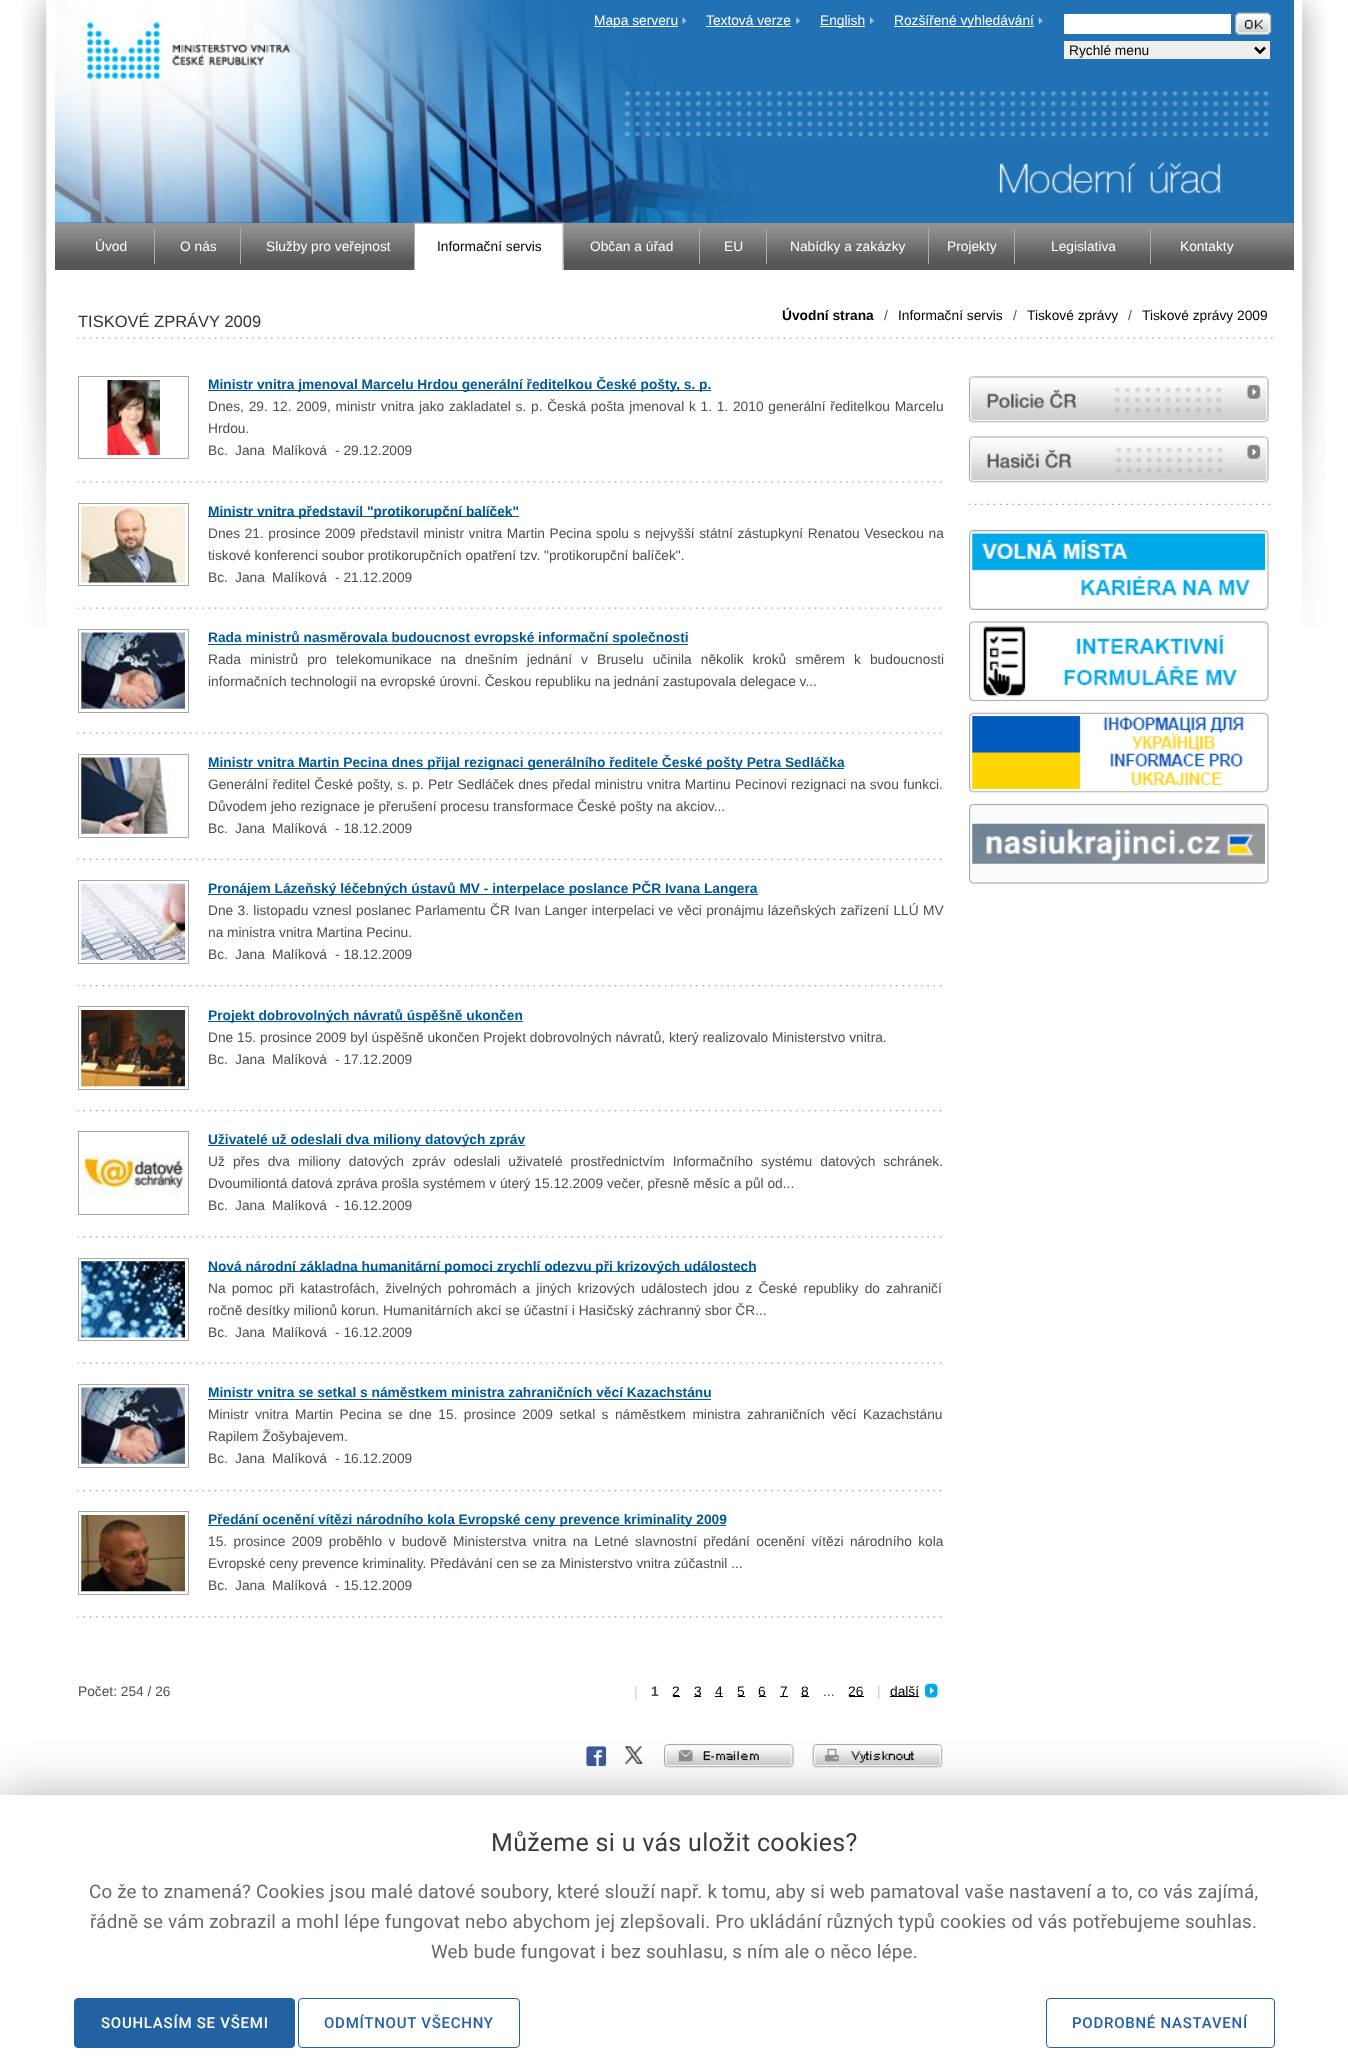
(async () => {
  const canvas = document.querySelector("canvas");
  canvas.width = 1348;
  canvas.height = 2072;
  const ctx = canvas.getContext("2d");
  ctx.miterLimit = 4;
  ctx.fontKerning = "normal";
  async function loadImage(src) {
    const img = new Image();
    img.src = src;
    await img.decode();
    return img;
  }
  let path;

  ctx.fillStyle = "#ffffff";
  ctx.fillRect(0, 0, 1348, 2072);
  ctx.drawImage(await loadImage("img/1.png"), 22, 0, 1304, 627);
  ctx.fillStyle = "#2172b4";
  ctx.fillRect(55, 0, 1239, 223);
  ctx.drawImage(await loadImage("img/2.png"), 55, 0, 1220, 223);
  ctx.drawImage(await loadImage("img/3.png"), 85, 20, 210, 60);
  ctx.fillStyle = "#ffffff";
  ctx.fillRect(594, 26, 84, 1);
  ctx.drawImage(await loadImage("img/4.png"), 682, 17, 5, 7);
  ctx.fillRect(706, 26, 85, 1);
  ctx.drawImage(await loadImage("img/5.png"), 796, 17, 4, 7);
  ctx.fillRect(820, 26, 45, 1);
  ctx.drawImage(await loadImage("img/6.png"), 870, 17, 4, 7);
  ctx.fillRect(894, 26, 140, 1);
  ctx.drawImage(await loadImage("img/7.png"), 1038, 17, 5, 7);
  ctx.fillRect(1064, 14, 167, 20);
  ctx.drawImage(await loadImage("img/8.png"), 1235, 12, 37, 23);
  ctx.fillStyle = "#efefef";
  ctx.fillRect(1064, 41, 206, 18);
  path = new Path2D("M1255 47.5L1260 52.5L1265 47.5");
  ctx.strokeStyle = "#000000";
  ctx.lineWidth = 2.5;
  ctx.stroke(path);
  ctx.fillStyle = "#575757";
  ctx.fillRect(55, 223, 1239, 47);
  ctx.drawImage(await loadImage("img/9.png"), 55, 223, 1239, 36);
  for (const [x, y, w, h, color] of [
    [154, 229, 1, 35, "#adadad"],
    [240, 229, 1, 35, "#adadad"],
    [415, 223, 149, 47, "#ffffff"],
  ]) {
    ctx.fillStyle = color;
    ctx.fillRect(x, y, w, h);
  }
  ctx.drawImage(await loadImage("img/10.png"), 413, 222, 151, 48);
  for (const [x, y, w, h, color] of [
    [414, 223, 1, 47, "#adadad"],
    [563, 229, 1, 35, "#adadad"],
    [699, 229, 1, 35, "#adadad"],
    [766, 229, 1, 35, "#adadad"],
    [928, 229, 1, 35, "#adadad"],
    [1014, 229, 1, 35, "#adadad"],
    [1150, 229, 1, 35, "#adadad"],
  ]) {
    ctx.fillStyle = color;
    ctx.fillRect(x, y, w, h);
  }
  ctx.drawImage(await loadImage("img/11.png"), 77, 337, 1196, 2);
  ctx.drawImage(await loadImage("img/12.png"), 77, 481, 865, 2);
  ctx.strokeStyle = "#a9a9a9";
  ctx.lineWidth = 1;
  ctx.strokeRect(78.5, 376.5, 110, 82);
  ctx.drawImage(await loadImage("img/13.png"), 107, 380, 53, 75);
  ctx.fillStyle = "#00599b";
  ctx.fillRect(208, 390, 503, 1);
  ctx.drawImage(await loadImage("img/14.png"), 77, 607, 865, 2);
  ctx.strokeRect(78.5, 503.5, 110, 82);
  ctx.drawImage(await loadImage("img/15.png"), 81, 506, 104, 77);
  ctx.fillRect(208, 516, 311, 1);
  ctx.drawImage(await loadImage("img/14.png"), 77, 732, 865, 2);
  ctx.strokeRect(78.5, 629.5, 110, 83);
  ctx.drawImage(await loadImage("img/16.png"), 81, 632, 104, 77);
  ctx.fillRect(208, 644, 480, 1);
  ctx.drawImage(await loadImage("img/17.png"), 77, 858, 865, 2);
  ctx.strokeRect(78.5, 754.5, 110, 83);
  ctx.drawImage(await loadImage("img/18.png"), 81, 757, 91, 77);
  ctx.fillRect(208, 768, 636, 1);
  ctx.drawImage(await loadImage("img/19.png"), 77, 985, 865, 2);
  ctx.strokeRect(78.5, 880.5, 110, 83);
  ctx.drawImage(await loadImage("img/20.png"), 81, 883, 104, 77);
  ctx.fillRect(208, 894, 550, 1);
  ctx.drawImage(await loadImage("img/19.png"), 77, 1110, 865, 2);
  ctx.strokeRect(78.5, 1006.5, 110, 83);
  ctx.drawImage(await loadImage("img/21.png"), 81, 1010, 104, 77);
  ctx.fillRect(208, 1021, 315, 1);
  ctx.drawImage(await loadImage("img/12.png"), 77, 1236, 865, 2);
  ctx.strokeRect(78.5, 1131.5, 110, 83);
  ctx.drawImage(await loadImage("img/22.png"), 82, 1154, 101, 42);
  ctx.fillRect(208, 1145, 317, 1);
  ctx.drawImage(await loadImage("img/14.png"), 77, 1362, 865, 2);
  ctx.strokeRect(78.5, 1258.5, 110, 82);
  ctx.drawImage(await loadImage("img/23.png"), 81, 1261, 104, 77);
  ctx.fillRect(208, 1271, 548, 1);
  ctx.drawImage(await loadImage("img/19.png"), 77, 1490, 865, 2);
  ctx.strokeRect(78.5, 1384.5, 110, 83);
  ctx.drawImage(await loadImage("img/16.png"), 81, 1387, 104, 77);
  ctx.fillRect(208, 1399, 503, 1);
  ctx.drawImage(await loadImage("img/12.png"), 77, 1616, 865, 2);
  ctx.strokeRect(78.5, 1511.5, 110, 83);
  ctx.drawImage(await loadImage("img/24.png"), 81, 1515, 104, 77);
  for (const [x, y, w, h, color] of [
    [208, 1525, 518, 1, "#00599b"],
    [673, 1696, 7, 1, "#000000"],
    [694, 1696, 7, 1, "#000000"],
    [715, 1696, 8, 1, "#000000"],
    [738, 1696, 7, 1, "#000000"],
    [759, 1696, 7, 1, "#000000"],
    [780, 1696, 8, 1, "#000000"],
    [801, 1696, 8, 1, "#000000"],
    [849, 1696, 15, 1, "#000000"],
    [890, 1696, 29, 1, "#000000"],
  ]) {
    ctx.fillStyle = color;
    ctx.fillRect(x, y, w, h);
  }
  ctx.drawImage(await loadImage("img/25.png"), 925, 1683, 13, 15);
  ctx.drawImage(await loadImage("img/26.png"), 586, 1746, 21, 21);
  ctx.drawImage(await loadImage("img/27.png"), 625, 1746, 18, 18);
  ctx.drawImage(await loadImage("img/28.png"), 663, 1743, 131, 25);
  ctx.drawImage(await loadImage("img/29.png"), 812, 1743, 131, 25);
  ctx.drawImage(await loadImage("img/30.png"), 969, 503, 302, 2);
  ctx.drawImage(await loadImage("img/31.png"), 968, 376, 301, 47);
  ctx.drawImage(await loadImage("img/32.png"), 968, 436, 301, 47);
  ctx.drawImage(await loadImage("img/33.png"), 969, 530, 300, 80);
  ctx.drawImage(await loadImage("img/34.png"), 972, 533, 293, 38);
  ctx.drawImage(await loadImage("img/35.png"), 969, 621, 300, 81);
  ctx.drawImage(await loadImage("img/36.png"), 969, 712, 300, 81);
  ctx.drawImage(await loadImage("img/37.png"), 972, 716, 109, 73);
  ctx.drawImage(await loadImage("img/38.png"), 969, 803, 300, 81);
  ctx.drawImage(await loadImage("img/39.png"), 972, 823, 1, 41);
  ctx.fillStyle = "rgba(59, 59, 59, 0.4)";
  ctx.filter = "blur(25px)";
  ctx.beginPath();
  ctx.rect(0, 1796, 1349, 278);
  ctx.fill();
  ctx.filter = "none";
  ctx.fillStyle = "#ffffff";
  ctx.fillRect(0, 1795, 1348, 277);
  ctx.fillStyle = "#2362a2";
  ctx.beginPath();
  ctx.roundRect(74.5, 1998.5, 220, 49, 3.5);
  ctx.fill();
  ctx.strokeStyle = "#2362a2";
  ctx.stroke();
  ctx.beginPath();
  ctx.roundRect(298.5, 1998.5, 221, 49, 3.5);
  ctx.stroke();
  ctx.beginPath();
  ctx.roundRect(1046.5, 1998.5, 228, 49, 3.5);
  ctx.stroke();
  ctx.font = "13.75px Liberation Sans";
  ctx.fillStyle = "#ffffff";
  for (const [text, x, y] of [
    ["Mapa serveru", 594, 25],
    ["Textová verze", 706, 25],
    ["English", 820, 25],
    ["Rozšířené vyhledávání", 894, 25],
  ]) {
    ctx.fillText(text, x, y);
  }
  ctx.fillStyle = "#000000";
  ctx.fillText("Rychlé menu", 1069, 55);
  ctx.fillStyle = "#ffffff";
  for (const [text, x, y] of [
    ["Úvod", 95, 251],
    ["O nás", 180, 251],
    ["Služby pro veřejnost", 266, 251],
  ]) {
    ctx.fillText(text, x, y);
  }
  ctx.fillStyle = "#000000";
  ctx.fillText("Informační servis", 437, 251);
  ctx.fillStyle = "#ffffff";
  for (const [text, x, y] of [
    ["Občan a úřad", 590, 251],
    ["EU", 724, 251],
    ["Nabídky a zakázky", 790, 251],
    ["Projekty", 947, 251],
    ["Legislativa", 1051, 251],
    ["Kontakty", 1180, 251],
  ]) {
    ctx.fillText(text, x, y);
  }
  ctx.font = "16.5px Liberation Sans";
  ctx.fillStyle = "#333333";
  ctx.fillText("TISKOVÉ ZPRÁVY 2009", 78, 327);
  ctx.font = "bold 13.75px Liberation Sans";
  ctx.fillStyle = "#000000";
  ctx.fillText("Úvodní strana", 782, 320);
  ctx.font = "13.75px Liberation Sans";
  ctx.fillStyle = "#4f4f4f";
  ctx.fillText("/", 884, 320);
  ctx.fillStyle = "#000000";
  ctx.fillText("Informační servis", 898, 320);
  ctx.fillStyle = "#4f4f4f";
  ctx.fillText("/", 1013, 320);
  ctx.fillStyle = "#000000";
  ctx.fillText("Tiskové zprávy", 1027, 320);
  ctx.fillStyle = "#4f4f4f";
  ctx.fillText("/", 1128, 320);
  ctx.fillStyle = "#000000";
  ctx.fillText("Tiskové zprávy 2009", 1142, 320);
  ctx.font = "bold 13.75px Liberation Sans";
  ctx.fillStyle = "#00599b";
  ctx.fillText("Ministr vnitra jmenoval Marcelu Hrdou generální ředitelkou České pošty, s. p.", 208, 389);
  ctx.wordSpacing = "0.9px";
  ctx.font = "13.75px Liberation Sans";
  ctx.fillStyle = "#4f4f4f";
  ctx.fillText("Dnes, 29. 12. 2009, ministr vnitra jako zakladatel s. p. Česká pošta jmenoval k 1. 1. 2010 generální ředitelkou Marcelu", 208, 411);
  ctx.wordSpacing = "0px";
  for (const [text, x, y] of [
    ["Hrdou.", 208, 433],
    ["Bc.", 208, 455],
    ["Jana", 235, 455],
    ["Malíková", 272, 455],
    ["- 29.12.2009", 335, 455],
  ]) {
    ctx.fillText(text, x, y);
  }
  ctx.font = "bold 13.75px Liberation Sans";
  ctx.fillStyle = "#00599b";
  ctx.fillText("Ministr vnitra představil \"protikorupční balíček\"", 208, 516);
  ctx.wordSpacing = "0.75px";
  ctx.font = "13.75px Liberation Sans";
  ctx.fillStyle = "#4f4f4f";
  ctx.fillText("Dnes 21. prosince 2009 představil ministr vnitra Martin Pecina spolu s nejvyšší státní zástupkyní Renatou Veseckou na", 208, 538);
  ctx.wordSpacing = "0px";
  for (const [text, x, y] of [
    ["tiskové konferenci soubor protikorupčních opatření tzv. \"protikorupční balíček\".", 208, 560],
    ["Bc.", 208, 582],
    ["Jana", 235, 582],
    ["Malíková", 272, 582],
    ["- 21.12.2009", 335, 582],
  ]) {
    ctx.fillText(text, x, y);
  }
  ctx.font = "bold 13.75px Liberation Sans";
  ctx.fillStyle = "#00599b";
  ctx.fillText("Rada ministrů nasměrovala budoucnost evropské informační společnosti", 208, 642);
  ctx.wordSpacing = "5.25px";
  ctx.font = "13.75px Liberation Sans";
  ctx.fillStyle = "#4f4f4f";
  ctx.fillText("Rada ministrů pro telekomunikace na dnešním jednání v Bruselu učinila několik kroků směrem k budoucnosti", 208, 664);
  ctx.wordSpacing = "0px";
  ctx.fillText("informačních technologií na evropské úrovni. Českou republiku na jednání zastupovala delegace v...", 208, 686);
  ctx.font = "bold 13.75px Liberation Sans";
  ctx.fillStyle = "#00599b";
  ctx.fillText("Ministr vnitra Martin Pecina dnes přijal rezignaci generálního ředitele České pošty Petra Sedláčka", 208, 767);
  ctx.wordSpacing = "0.4px";
  ctx.font = "13.75px Liberation Sans";
  ctx.fillStyle = "#4f4f4f";
  ctx.fillText("Generální ředitel České pošty, s. p. Petr Sedláček dnes předal ministru vnitra Martinu Pecinovi rezignaci na svou funkci.", 208, 789);
  ctx.wordSpacing = "0px";
  for (const [text, x, y] of [
    ["Důvodem jeho rezignace je přerušení procesu transformace České pošty na akciov...", 208, 811],
    ["Bc.", 208, 833],
    ["Jana", 235, 833],
    ["Malíková", 272, 833],
    ["- 18.12.2009", 335, 833],
  ]) {
    ctx.fillText(text, x, y);
  }
  ctx.font = "bold 13.75px Liberation Sans";
  ctx.fillStyle = "#00599b";
  ctx.fillText("Pronájem Lázeňský léčebných ústavů MV - interpelace poslance PČR Ivana Langera", 208, 893);
  ctx.wordSpacing = "0.5px";
  ctx.font = "13.75px Liberation Sans";
  ctx.fillStyle = "#4f4f4f";
  ctx.fillText("Dne 3. listopadu vznesl poslanec Parlamentu ČR Ivan Langer interpelaci ve věci pronájmu lázeňských zařízení LLÚ MV", 208, 915);
  ctx.wordSpacing = "0px";
  for (const [text, x, y] of [
    ["na ministra vnitra Martina Pecinu.", 208, 937],
    ["Bc.", 208, 959],
    ["Jana", 235, 959],
    ["Malíková", 272, 959],
    ["- 18.12.2009", 335, 959],
  ]) {
    ctx.fillText(text, x, y);
  }
  ctx.font = "bold 13.75px Liberation Sans";
  ctx.fillStyle = "#00599b";
  ctx.fillText("Projekt dobrovolných návratů úspěšně ukončen", 208, 1020);
  ctx.font = "13.75px Liberation Sans";
  ctx.fillStyle = "#4f4f4f";
  for (const [text, x, y] of [
    ["Dne 15. prosince 2009 byl úspěšně ukončen Projekt dobrovolných návratů, který realizovalo Ministerstvo vnitra.", 208, 1042],
    ["Bc.", 208, 1064],
    ["Jana", 235, 1064],
    ["Malíková", 272, 1064],
    ["- 17.12.2009", 335, 1064],
  ]) {
    ctx.fillText(text, x, y);
  }
  ctx.font = "bold 13.75px Liberation Sans";
  ctx.fillStyle = "#00599b";
  ctx.fillText("Uživatelé už odeslali dva miliony datových zpráv", 208, 1144);
  ctx.wordSpacing = "4.25px";
  ctx.font = "13.75px Liberation Sans";
  ctx.fillStyle = "#4f4f4f";
  ctx.fillText("Už přes dva miliony datových zpráv odeslali uživatelé prostřednictvím Informačního systému datových schránek.", 208, 1166);
  ctx.wordSpacing = "0px";
  for (const [text, x, y] of [
    ["Dvoumiliontá datová zpráva prošla systémem v úterý 15.12.2009 večer, přesně měsíc a půl od...", 208, 1188],
    ["Bc.", 208, 1210],
    ["Jana", 235, 1210],
    ["Malíková", 272, 1210],
    ["- 16.12.2009", 335, 1210],
  ]) {
    ctx.fillText(text, x, y);
  }
  ctx.font = "bold 13.75px Liberation Sans";
  ctx.fillStyle = "#00599b";
  ctx.fillText("Nová národní základna humanitární pomoci zrychlí odezvu při krizových událostech", 208, 1271);
  ctx.wordSpacing = "2.25px";
  ctx.font = "13.75px Liberation Sans";
  ctx.fillStyle = "#4f4f4f";
  ctx.fillText("Na pomoc při katastrofách, živelných pohromách a jiných krizových událostech jdou z České republiky do zahraničí", 208, 1293);
  ctx.wordSpacing = "0px";
  for (const [text, x, y] of [
    ["ročně desítky milionů korun. Humanitárních akcí se účastní i Hasičský záchranný sbor ČR...", 208, 1315],
    ["Bc.", 208, 1337],
    ["Jana", 235, 1337],
    ["Malíková", 272, 1337],
    ["- 16.12.2009", 335, 1337],
  ]) {
    ctx.fillText(text, x, y);
  }
  ctx.font = "bold 13.75px Liberation Sans";
  ctx.fillStyle = "#00599b";
  ctx.fillText("Ministr vnitra se setkal s náměstkem ministra zahraničních věcí Kazachstánu", 208, 1397);
  ctx.wordSpacing = "2.6px";
  ctx.font = "13.75px Liberation Sans";
  ctx.fillStyle = "#4f4f4f";
  ctx.fillText("Ministr vnitra Martin Pecina se dne 15. prosince 2009 setkal s náměstkem ministra zahraničních věcí Kazachstánu", 208, 1419);
  ctx.wordSpacing = "0px";
  for (const [text, x, y] of [
    ["Rapilem Žošybajevem.", 208, 1441],
    ["Bc.", 208, 1463],
    ["Jana", 235, 1463],
    ["Malíková", 272, 1463],
    ["- 16.12.2009", 335, 1463],
  ]) {
    ctx.fillText(text, x, y);
  }
  ctx.font = "bold 13.75px Liberation Sans";
  ctx.fillStyle = "#00599b";
  ctx.fillText("Předání ocenění vítězi národního kola Evropské ceny prevence kriminality 2009", 208, 1524);
  ctx.wordSpacing = "2.5px";
  ctx.font = "13.75px Liberation Sans";
  ctx.fillStyle = "#4f4f4f";
  ctx.fillText("15. prosince 2009 proběhlo v budově Ministerstva vnitra na Letné slavnostní předání ocenění vítězi národního kola", 208, 1546);
  ctx.wordSpacing = "0px";
  for (const [text, x, y] of [
    ["Evropské ceny prevence kriminality. Předávání cen se za Ministerstvo vnitra zúčastnil ...", 208, 1568],
    ["Bc.", 208, 1590],
    ["Jana", 235, 1590],
    ["Malíková", 272, 1590],
    ["- 15.12.2009", 335, 1590],
    ["Počet: 254 / 26", 78, 1696],
  ]) {
    ctx.fillText(text, x, y);
  }
  ctx.fillStyle = "#cccccc";
  ctx.fillText("|", 634, 1696);
  ctx.font = "bold 13.75px Liberation Sans";
  ctx.fillStyle = "#4f4f4f";
  ctx.fillText("1", 651, 1696);
  ctx.font = "13.75px Liberation Sans";
  ctx.fillStyle = "#000000";
  for (const [text, x, y] of [
    ["2", 672, 1696],
    ["3", 694, 1696],
    ["4", 715, 1696],
    ["5", 737, 1696],
    ["6", 758, 1696],
    ["7", 780, 1696],
    ["8", 801, 1696],
  ]) {
    ctx.fillText(text, x, y);
  }
  ctx.fillStyle = "#4f4f4f";
  ctx.fillText("...", 823, 1696);
  ctx.fillStyle = "#000000";
  ctx.fillText("26", 848, 1696);
  ctx.fillStyle = "#cccccc";
  ctx.fillText("|", 877, 1696);
  ctx.fillStyle = "#000000";
  ctx.fillText("další", 890, 1696);
  ctx.letterSpacing = "0.3px";
  ctx.font = "25px Roboto";
  ctx.fillStyle = "#3b3b3b";
  ctx.fillText("Můžeme si u vás uložit cookies?", 491, 1851);
  ctx.letterSpacing = "0.23px";
  ctx.font = "18.75px Roboto";
  ctx.fillStyle = "#686868";
  for (const [text, x, y] of [
    ["Co že to znamená? Cookies jsou malé datové soubory, které slouží např. k tomu, aby si web pamatoval vaše nastavení a to, co vás zajímá,", 89, 1898],
    ["řádně se vám zobrazil a mohl lépe fungovat nebo abychom jej zlepšovali. Pro ukládání různých typů cookies od vás potřebujeme souhlas.", 90, 1928],
    ["Web bude fungovat i bez souhlasu, s ním ale o něco lépe.", 431, 1958],
  ]) {
    ctx.fillText(text, x, y);
  }
  ctx.letterSpacing = "0.75px";
  ctx.font = "500 15px Roboto";
  ctx.fillStyle = "#ffffff";
  ctx.fillText("SOUHLASÍM SE VŠEMI", 101, 2028);
  ctx.fillStyle = "#2362a2";
  ctx.fillText("ODMÍTNOUT VŠECHNY", 324, 2028);
  ctx.fillText("PODROBNÉ NASTAVENÍ", 1072, 2028);
})();
